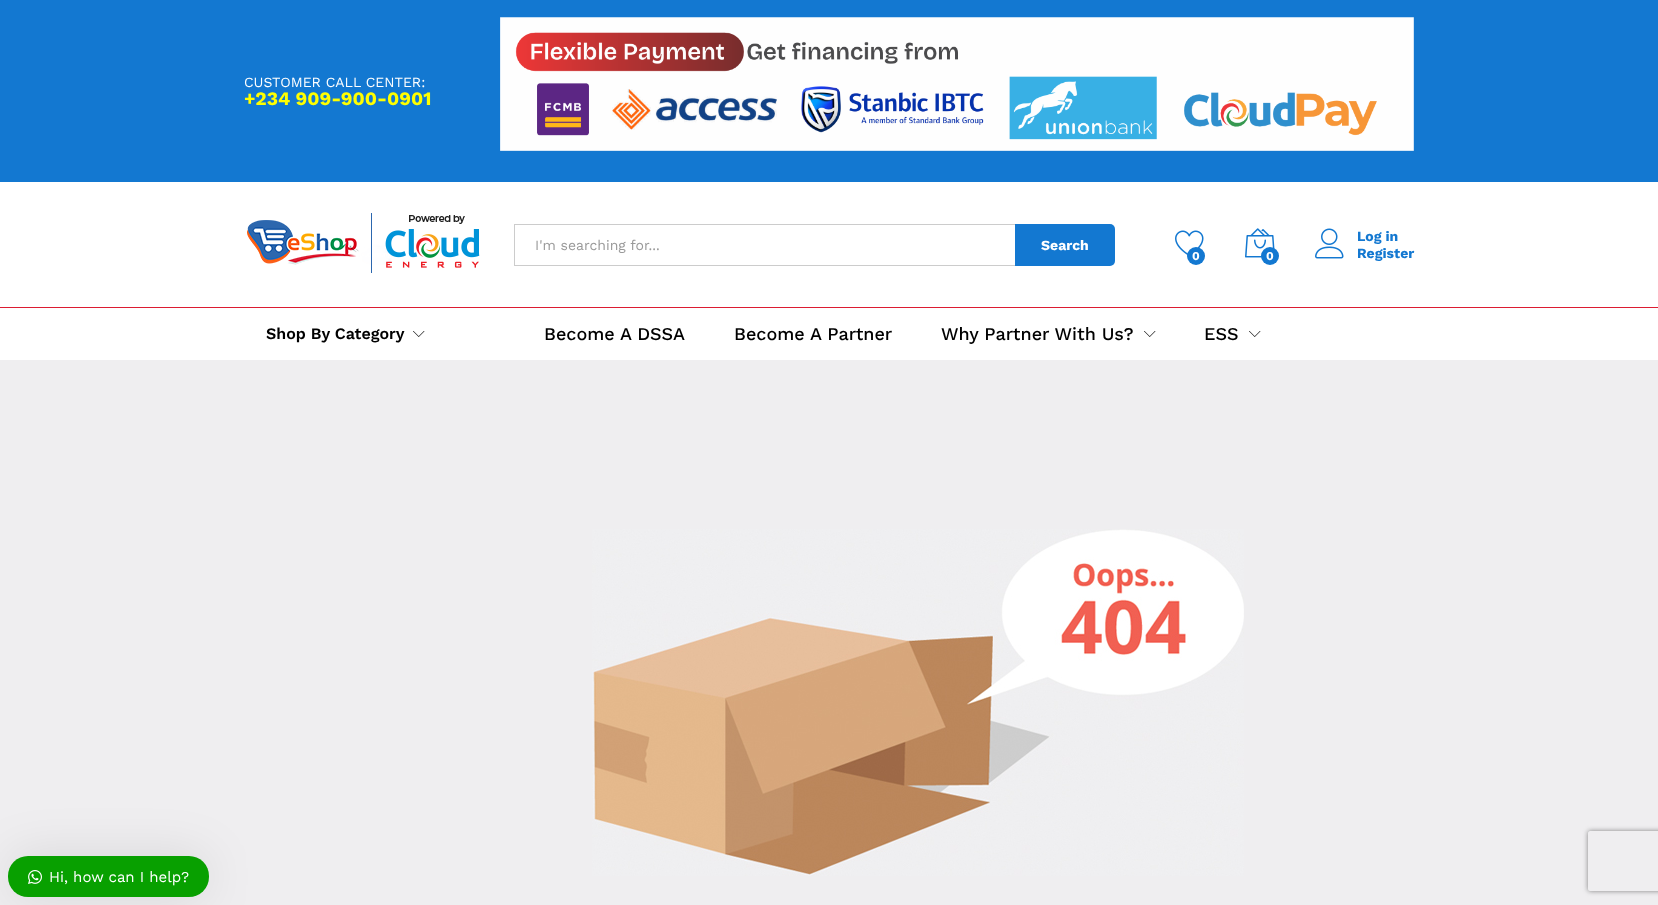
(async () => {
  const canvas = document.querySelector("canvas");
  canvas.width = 1658;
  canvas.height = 905;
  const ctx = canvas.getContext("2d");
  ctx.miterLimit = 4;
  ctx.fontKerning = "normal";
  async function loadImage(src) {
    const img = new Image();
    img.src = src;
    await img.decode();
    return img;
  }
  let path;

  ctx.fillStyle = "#ffffff";
  ctx.fillRect(0, 0, 1658, 905);
  ctx.fillStyle = "#1378d1";
  ctx.fillRect(0, 0, 1658, 182);
  ctx.drawImage(await loadImage("img/1.png"), 500, 17, 914, 134);
  ctx.drawImage(await loadImage("img/2.png"), 247, 213, 233, 60);
  for (const [x, y, w, h, color] of [
    [514, 224, 1, 42, "#cccccc"],
    [515, 224, 500, 1, "#cccccc"],
    [515, 265, 500, 1, "#cccccc"],
  ]) {
    ctx.fillStyle = color;
    ctx.fillRect(x, y, w, h);
  }
  ctx.fillStyle = "#1378d1";
  ctx.beginPath();
  ctx.roundRect(1015, 224, 100, 42, [0, 5, 5, 0]);
  ctx.fill();
  ctx.drawImage(await loadImage("img/3.png"), 1175, 230, 29, 26);
  ctx.beginPath();
  ctx.arc(1196, 256, 9, 0, Math.PI * 2);
  ctx.fill();
  ctx.drawImage(await loadImage("img/4.png"), 1245, 228, 30, 30);
  ctx.beginPath();
  ctx.arc(1270, 256, 9, 0, Math.PI * 2);
  ctx.fill();
  ctx.drawImage(await loadImage("img/5.png"), 1315, 228, 29, 31);
  ctx.fillStyle = "#dc1c32";
  ctx.fillRect(0, 307, 1658, 1);
  ctx.drawImage(await loadImage("img/6.png"), 413, 331, 12, 6);
  ctx.drawImage(await loadImage("img/6.png"), 1144, 331, 12, 6);
  ctx.drawImage(await loadImage("img/6.png"), 1249, 331, 12, 6);
  ctx.fillStyle = "#efeef0";
  ctx.fillRect(0, 360, 1658, 545);
  ctx.drawImage(await loadImage("img/7.png"), 592, 529, 652, 347);
  ctx.fillStyle = "rgba(0, 0, 0, 0.1)";
  ctx.filter = "blur(25px)";
  ctx.beginPath();
  ctx.roundRect(8, 856, 201, 41, 20);
  ctx.fill();
  ctx.filter = "none";
  ctx.fillStyle = "#08a000";
  ctx.beginPath();
  ctx.roundRect(8, 856, 201, 41, 20);
  ctx.fill();
  ctx.drawImage(await loadImage("img/8.png"), 28, 870, 14, 14);
  ctx.save();
  path = new Path2D("M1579 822H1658V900H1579ZM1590 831H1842C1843 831 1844 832 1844 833V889C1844 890 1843 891 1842 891H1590C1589 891 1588 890 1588 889V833C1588 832 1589 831 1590 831Z");
  ctx.clip(path, "evenodd");
  ctx.fillStyle = "#808080";
  ctx.filter = "blur(2.5px)";
  ctx.beginPath();
  ctx.roundRect(1588, 831, 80, 60, 2);
  ctx.fill();
  ctx.filter = "none";
  ctx.restore();
  ctx.font = "14px Work Sans";
  ctx.fillStyle = "#ffffff";
  ctx.fillText("CUSTOMER CALL CENTER:", 244, 87);
  ctx.font = "bold 19px Work Sans";
  ctx.fillStyle = "#ffff00";
  ctx.fillText("+234 909-900-0901", 244, 105);
  ctx.font = "14px Work Sans";
  ctx.fillStyle = "#999999";
  ctx.fillText("I'm searching for...", 535, 250);
  ctx.font = "bold 14px Work Sans";
  ctx.fillStyle = "#ffffff";
  ctx.fillText("Search", 1041, 250);
  ctx.font = "bold 12px Work Sans";
  ctx.fillText("0", 1192, 260);
  ctx.fillText("0", 1266, 260);
  ctx.font = "bold 14px Work Sans";
  ctx.fillStyle = "#1378d1";
  ctx.fillText("Log in", 1357, 241);
  ctx.fillText("Register", 1357, 258);
  ctx.font = "600 16px Work Sans";
  ctx.fillStyle = "#000000";
  ctx.fillText("Shop By Category", 266, 339);
  ctx.font = "500 18px Work Sans";
  for (const [text, x, y] of [
    ["Become A DSSA", 544, 340],
    ["Become A Partner", 734, 340],
    ["Why Partner With Us?", 941, 340],
    ["ESS", 1204, 340],
  ]) {
    ctx.fillText(text, x, y);
  }
  ctx.font = "15px Work Sans";
  ctx.fillStyle = "#ffffff";
  ctx.fillText("Hi, how can I help?", 49, 882);
})();
